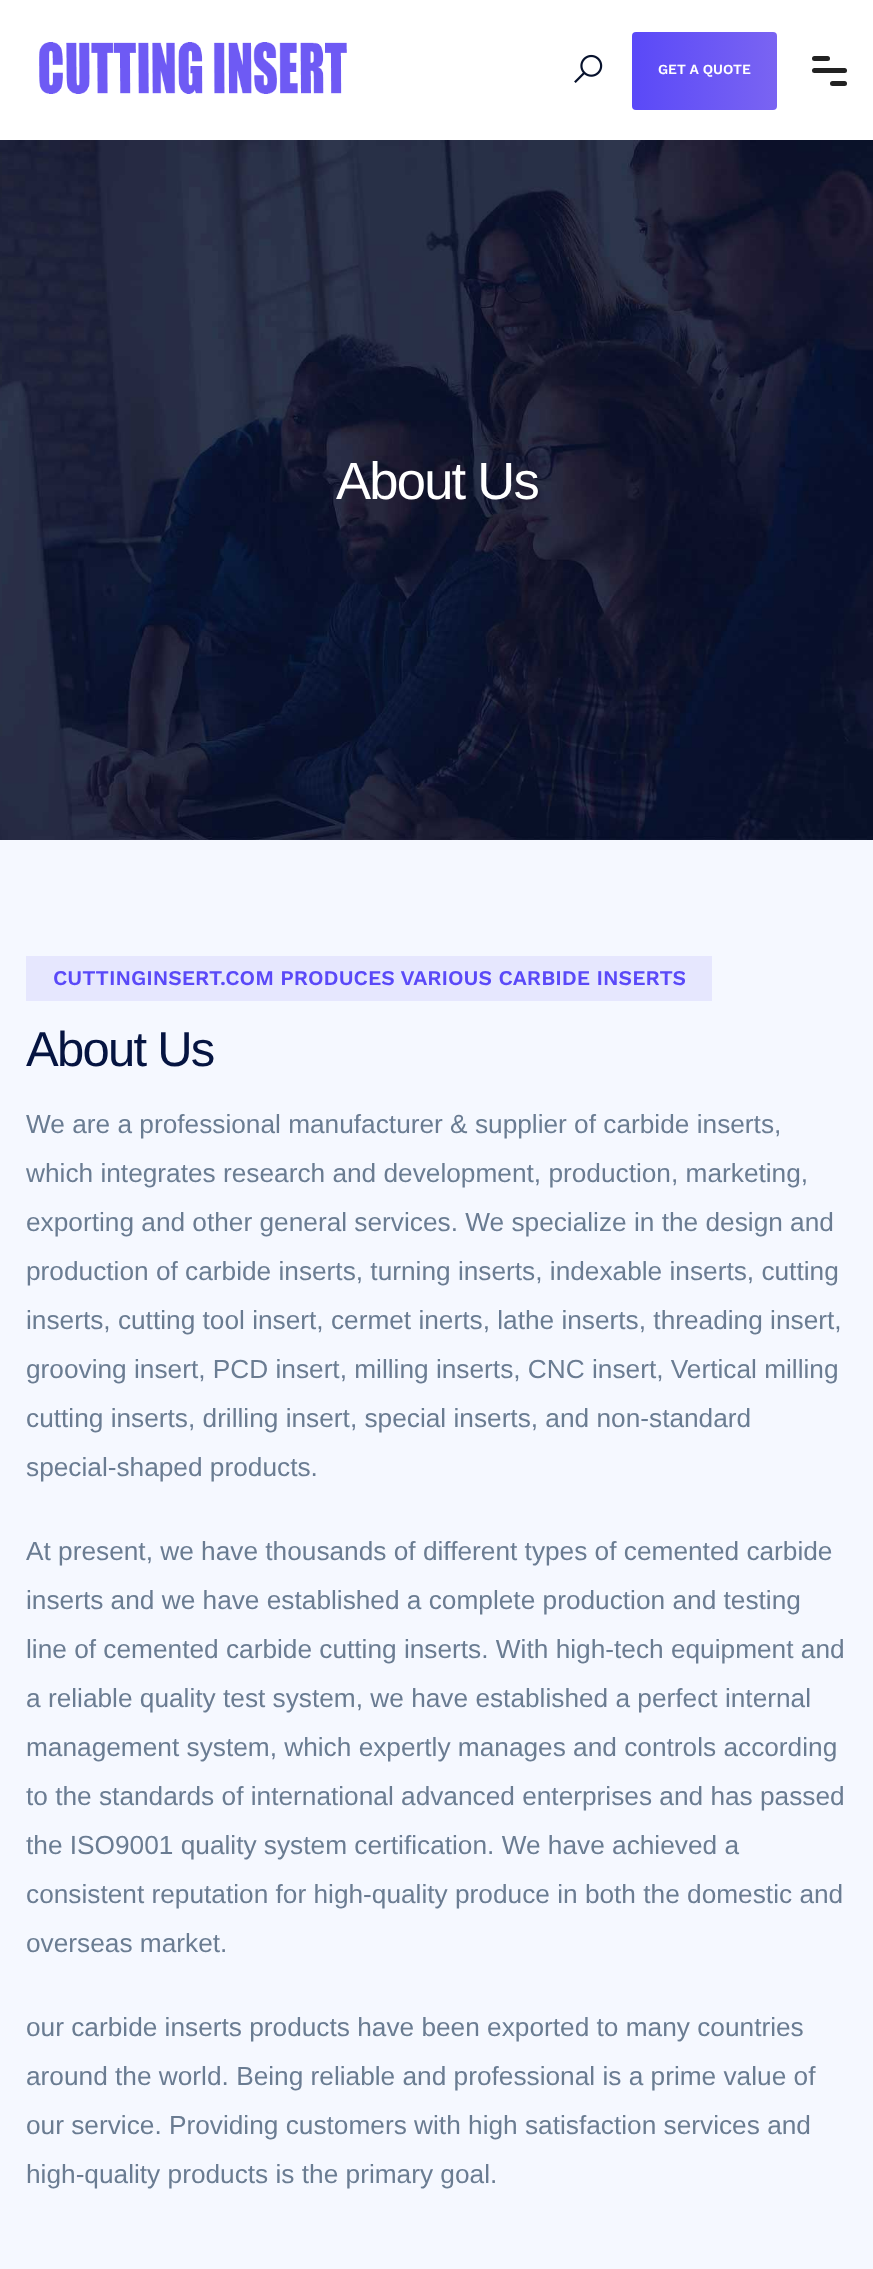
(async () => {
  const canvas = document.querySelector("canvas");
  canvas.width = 873;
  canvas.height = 2269;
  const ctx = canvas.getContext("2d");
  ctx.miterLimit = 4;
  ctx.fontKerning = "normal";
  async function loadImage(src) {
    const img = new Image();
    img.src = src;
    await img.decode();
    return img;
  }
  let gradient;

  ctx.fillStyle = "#ffffff";
  ctx.fillRect(0, 0, 873, 2269);
  ctx.drawImage(await loadImage("img/1.png"), 39, 42, 308, 52);
  ctx.drawImage(await loadImage("img/2.png"), 574, 54, 29, 29);
  gradient = ctx.createLinearGradient(632, 71, 777, 71);
  gradient.addColorStop(0, "#5a49f8");
  gradient.addColorStop(1, "#7a64f2");
  ctx.fillStyle = gradient;
  ctx.beginPath();
  ctx.roundRect(632, 32, 145, 78, 4);
  ctx.fill();
  ctx.fillStyle = "#222222";
  ctx.beginPath();
  ctx.roundRect(812, 56, 18, 5, 2.5);
  ctx.fill();
  ctx.beginPath();
  ctx.roundRect(812, 68, 35, 5, 2.5);
  ctx.fill();
  ctx.beginPath();
  ctx.roundRect(830, 81, 17, 5, 2.5);
  ctx.fill();
  ctx.drawImage(await loadImage("img/3.png"), 0, 140, 873, 700);
  ctx.fillStyle = "#f5f8ff";
  ctx.fillRect(0, 840, 873, 1429);
  ctx.fillStyle = "#e6e7fe";
  ctx.fillRect(26, 956, 686, 45);
  ctx.font = "600 14px Work Sans";
  ctx.fillStyle = "#ffffff";
  ctx.fillText("GET A QUOTE", 658, 74);
  ctx.letterSpacing = "-1.75px";
  ctx.font = "52.5px Liberation Sans";
  ctx.fillText("About Us", 336, 499);
  ctx.letterSpacing = "0px";
  ctx.font = "600 21px Work Sans";
  ctx.fillStyle = "#5a49f8";
  ctx.fillText("CUTTINGINSERT.COM PRODUCES VARIOUS CARBIDE INSERTS", 53, 985);
  ctx.letterSpacing = "-1.75px";
  ctx.font = "49px Liberation Sans";
  ctx.fillStyle = "#051441";
  ctx.fillText("About Us", 26, 1066);
  ctx.letterSpacing = "0px";
  ctx.font = "26.25px Liberation Sans";
  ctx.fillStyle = "#6a7c92";
  for (const [text, x, y] of [
    ["We are a professional manufacturer & supplier of carbide inserts,", 26, 1133],
    ["which integrates research and development, production, marketing,", 26, 1182],
    ["exporting and other general services. We specialize in the design and", 26, 1231],
    ["production of carbide inserts, turning inserts, indexable inserts, cutting", 26, 1280],
    ["inserts, cutting tool insert, cermet inerts, lathe inserts, threading insert,", 26, 1329],
    ["grooving insert, PCD insert, milling inserts, CNC insert, Vertical milling", 26, 1378],
    ["cutting inserts, drilling insert, special inserts, and non-standard", 26, 1427],
    ["special-shaped products.", 26, 1476],
    ["At present, we have thousands of different types of cemented carbide", 26, 1560],
    ["inserts and we have established a complete production and testing", 26, 1609],
    ["line of cemented carbide cutting inserts. With high-tech equipment and", 26, 1658],
    ["a reliable quality test system, we have established a perfect internal", 26, 1707],
    ["management system, which expertly manages and controls according", 26, 1756],
    ["to the standards of international advanced enterprises and has passed", 26, 1805],
    ["the ISO9001 quality system certification. We have achieved a", 26, 1854],
    ["consistent reputation for high-quality produce in both the domestic and", 26, 1903],
    ["overseas market.", 26, 1952],
    ["our carbide inserts products have been exported to many countries", 26, 2036],
    ["around the world. Being reliable and professional is a prime value of", 26, 2085],
    ["our service. Providing customers with high satisfaction services and", 26, 2134],
    ["high-quality products is the primary goal.", 26, 2183],
  ]) {
    ctx.fillText(text, x, y);
  }
})();
